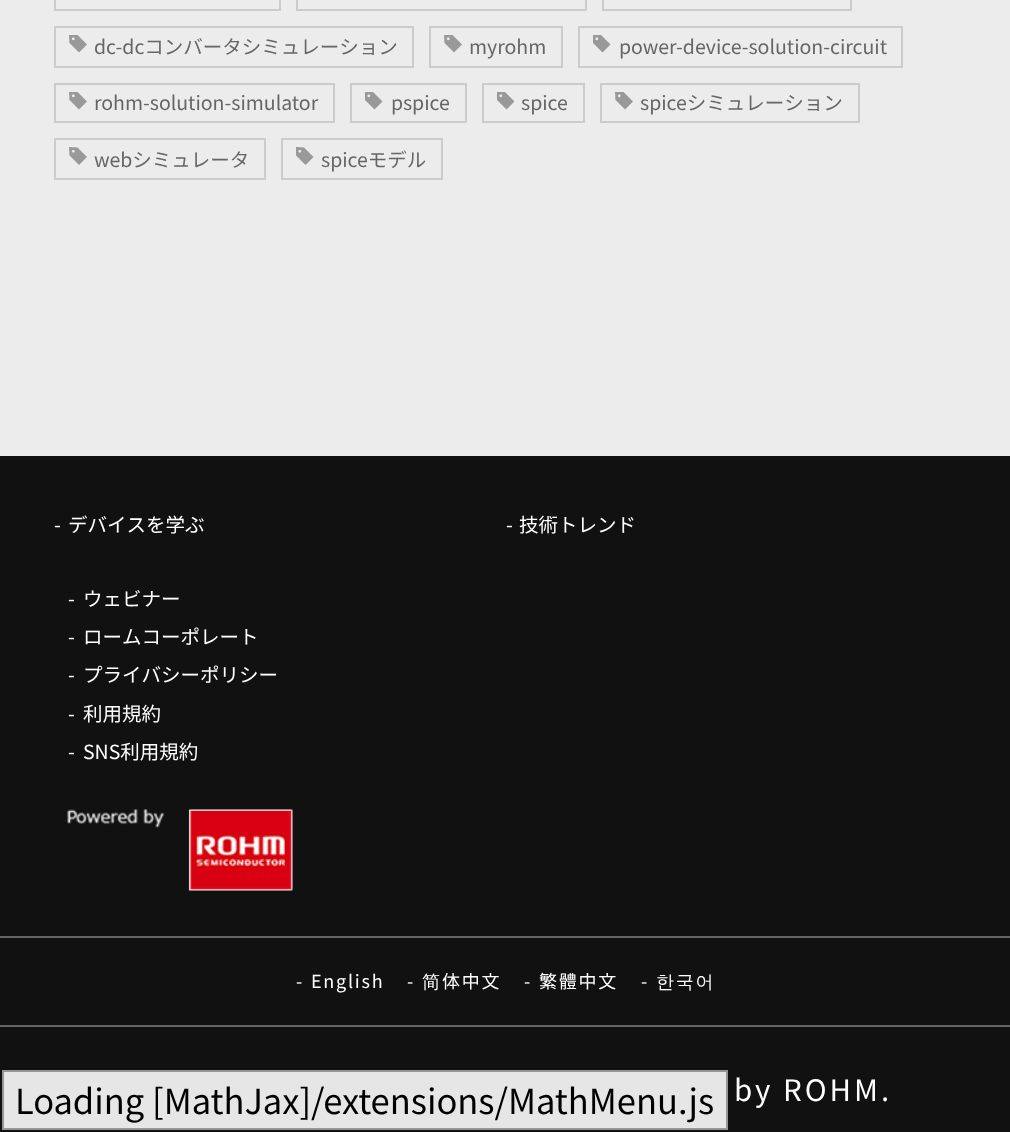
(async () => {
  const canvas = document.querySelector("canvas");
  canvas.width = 1010;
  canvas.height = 1132;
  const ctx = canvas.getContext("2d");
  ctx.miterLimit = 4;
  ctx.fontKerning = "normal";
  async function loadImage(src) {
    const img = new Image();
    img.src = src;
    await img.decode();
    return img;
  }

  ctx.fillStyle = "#ececec";
  ctx.fillRect(0, 0, 1010, 1132);
  ctx.strokeStyle = "#cccccc";
  ctx.lineWidth = 2;
  ctx.strokeRect(55, -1, 225, 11);
  ctx.strokeRect(297, -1, 289, 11);
  ctx.strokeRect(603, -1, 248, 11);
  ctx.drawImage(await loadImage("img/1.png"), 69, 35, 18, 18);
  ctx.strokeRect(55, 27, 358, 40);
  ctx.drawImage(await loadImage("img/1.png"), 444, 35, 18, 18);
  ctx.strokeRect(430, 27, 132, 40);
  ctx.drawImage(await loadImage("img/2.png"), 593, 35, 18, 18);
  ctx.strokeRect(579, 27, 323, 40);
  ctx.drawImage(await loadImage("img/1.png"), 69, 92, 18, 18);
  ctx.strokeRect(55, 84, 279, 38);
  ctx.drawImage(await loadImage("img/2.png"), 365, 92, 18, 18);
  ctx.strokeRect(351, 84, 115, 38);
  ctx.drawImage(await loadImage("img/2.png"), 497, 92, 18, 18);
  ctx.strokeRect(483, 84, 101, 38);
  ctx.drawImage(await loadImage("img/1.png"), 615, 92, 18, 18);
  ctx.strokeRect(601, 84, 258, 38);
  ctx.drawImage(await loadImage("img/3.png"), 69, 147, 18, 18);
  ctx.strokeRect(55, 139, 210, 40);
  ctx.drawImage(await loadImage("img/4.png"), 296, 147, 18, 18);
  ctx.strokeRect(282, 139, 160, 40);
  ctx.fillStyle = "#111111";
  ctx.fillRect(0, 456, 1010, 676);
  ctx.drawImage(await loadImage("img/5.png"), 67, 809, 226, 82);
  ctx.fillStyle = "#65666a";
  ctx.fillRect(0, 936, 1010, 2);
  ctx.fillRect(0, 1025, 1010, 2);
  ctx.fillStyle = "#e6e6e6";
  ctx.beginPath();
  ctx.rect(3, 1071, 724, 58);
  ctx.fill();
  ctx.strokeStyle = "#959595";
  ctx.stroke();
  ctx.font = "19.5px Noto Sans JP";
  ctx.fillStyle = "#666666";
  for (const [text, x, y] of [
    ["dc-dcコンバータシミュレーション", 94, 54],
    ["myrohm", 469, 54],
    ["power-device-solution-circuit", 619, 54],
    ["rohm-solution-simulator", 94, 110],
    ["pspice", 391, 110],
    ["spice", 521, 110],
    ["spiceシミュレーション", 640, 110],
    ["webシミュレータ", 94, 167],
    ["spiceモデル", 321, 167],
  ]) {
    ctx.fillText(text, x, y);
  }
  ctx.fillStyle = "#ffffff";
  for (const [text, x, y] of [
    ["-", 54, 532],
    ["デバイスを学ぶ", 68, 532],
    ["-", 506, 532],
    ["技術トレンド", 519, 532],
    ["-", 68, 606],
    ["ウェビナー", 83, 606],
    ["-", 68, 644],
    ["ロームコーポレート", 83, 644],
    ["-", 68, 682],
    ["プライバシーポリシー", 83, 682],
    ["-", 68, 721],
    ["利用規約", 83, 721],
    ["-", 68, 759],
    ["SNS利用規約", 83, 759],
  ]) {
    ctx.fillText(text, x, y);
  }
  ctx.letterSpacing = "1.75px";
  ctx.font = "18px Noto Sans JP";
  for (const [text, x, y] of [
    ["-", 296, 988],
    ["English", 311, 988],
    ["-", 407, 988],
  ]) {
    ctx.fillText(text, x, y);
  }
  ctx.font = "500 18px WenQuanYi Zen Hei";
  ctx.fillText("简", 422, 988);
  ctx.font = "18px Noto Sans JP";
  for (const [text, x, y] of [
    ["体中文", 442, 988],
    ["-", 524, 988],
    ["繁體中文", 539, 988],
    ["-", 641, 988],
  ]) {
    ctx.fillText(text, x, y);
  }
  ctx.font = "500 18px WenQuanYi Zen Hei";
  ctx.fillText("한국어", 656, 988);
  ctx.letterSpacing = "3px";
  ctx.font = "29.5px Noto Sans JP";
  ctx.fillText("by ROHM.", 734, 1101);
  ctx.letterSpacing = "0px";
  ctx.font = "34.5px Noto Sans JP";
  ctx.fillStyle = "#000000";
  ctx.fillText("Loading [MathJax]/extensions/MathMenu.js", 15, 1114);
})();
